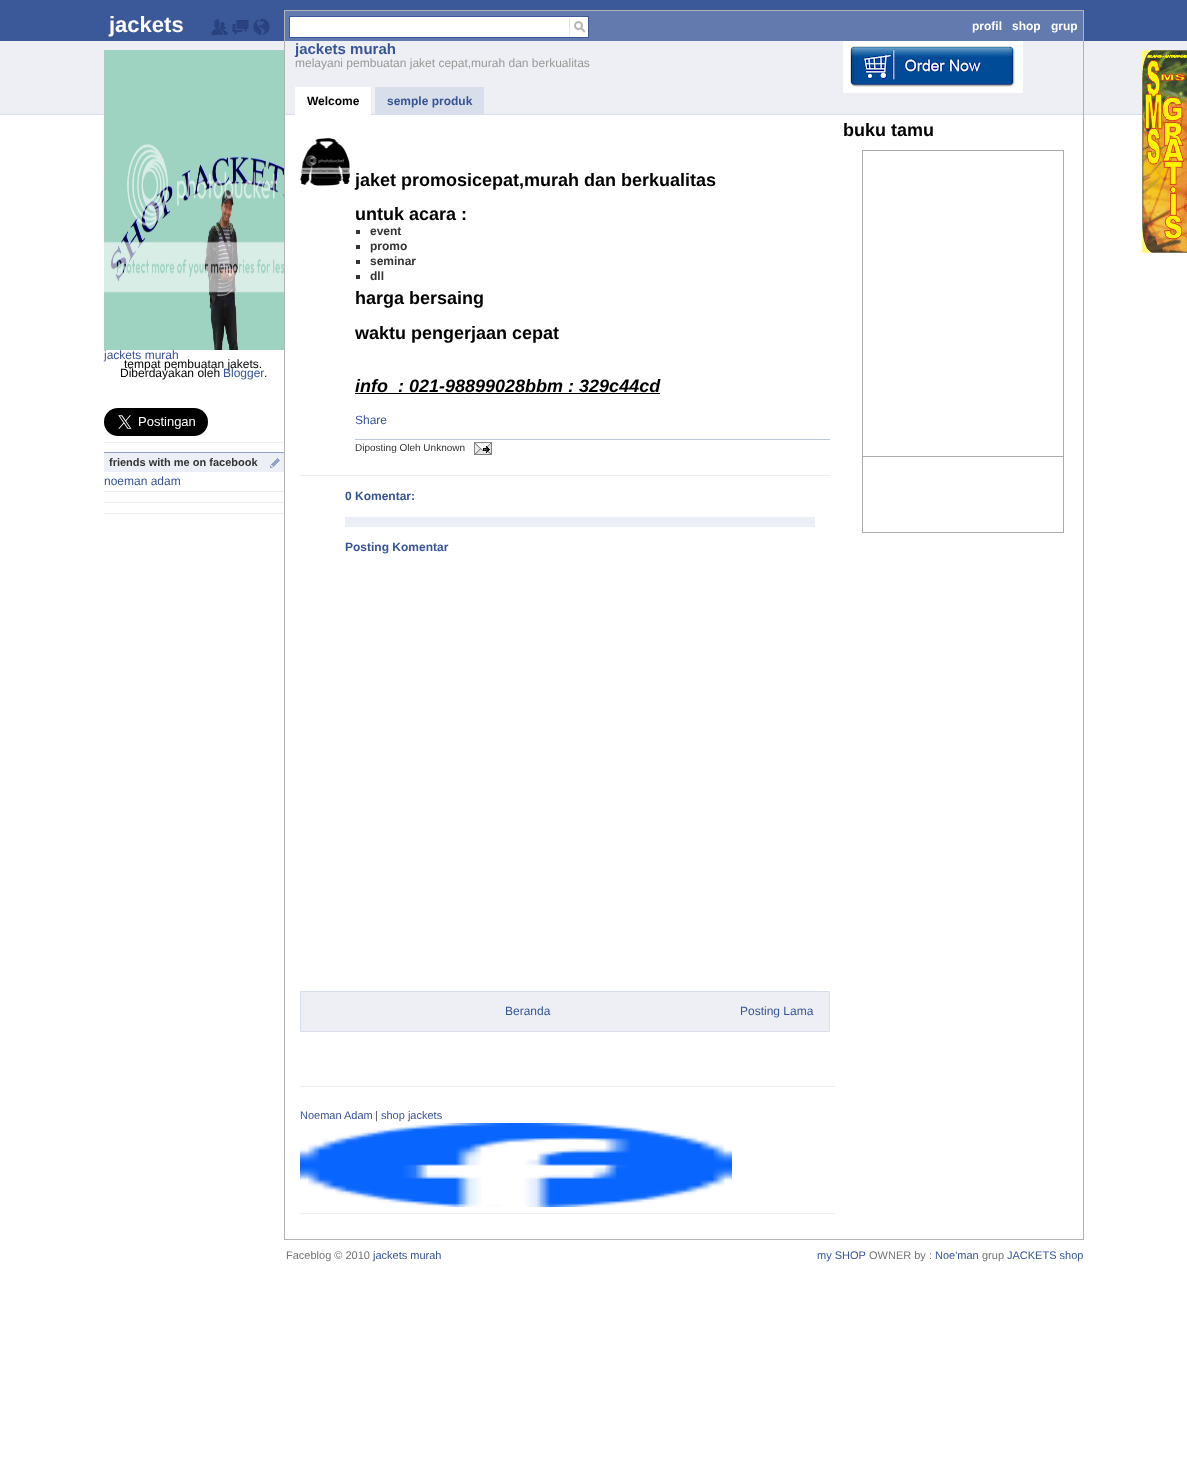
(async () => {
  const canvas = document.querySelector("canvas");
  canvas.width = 1187;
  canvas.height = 1470;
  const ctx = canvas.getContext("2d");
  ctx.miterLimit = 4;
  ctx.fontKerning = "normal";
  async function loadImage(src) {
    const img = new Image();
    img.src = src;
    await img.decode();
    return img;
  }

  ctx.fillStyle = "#ffffff";
  ctx.fillRect(0, 0, 1187, 1470);
  ctx.drawImage(await loadImage("img/1.png"), 0, 0, 1187, 115);
  ctx.drawImage(await loadImage("img/2.png"), 211, 19, 17, 16);
  ctx.drawImage(await loadImage("img/3.png"), 232, 20, 17, 15);
  ctx.drawImage(await loadImage("img/4.png"), 253, 19, 17, 16);
  ctx.drawImage(await loadImage("img/5.png"), 1142, 50, 45, 203);
  ctx.drawImage(await loadImage("img/6.png"), 104, 50, 180, 300);
  ctx.fillStyle = "#eeeeee";
  ctx.fillRect(104, 442, 180, 1);
  ctx.drawImage(await loadImage("img/7.png"), 104, 408, 104, 28);
  ctx.fillRect(104, 491, 180, 1);
  ctx.fillStyle = "#eceff5";
  ctx.fillRect(104, 453, 180, 19);
  ctx.drawImage(await loadImage("img/8.png"), 270, 458, 10, 10);
  for (const [x, y, w, h, color] of [
    [104, 452, 180, 1, "#94a3c4"],
    [104, 502, 180, 1, "#eeeeee"],
    [104, 513, 180, 1, "#eeeeee"],
  ]) {
    ctx.fillStyle = color;
    ctx.fillRect(x, y, w, h);
  }
  ctx.strokeStyle = "#b3b3b3";
  ctx.strokeRect(284.5, 10.5, 799, 1229);
  ctx.fillStyle = "#627aad";
  ctx.fillRect(285, 11, 798, 30);
  ctx.strokeStyle = "#3b5998";
  ctx.strokeRect(289.5, 16.5, 299, 21);
  ctx.fillStyle = "#ffffff";
  ctx.fillRect(290, 17, 298, 20);
  ctx.drawImage(await loadImage("img/9.png"), 569, 18, 17, 19);
  ctx.fillRect(295, 87, 76, 28);
  ctx.fillStyle = "#d8dfea";
  ctx.fillRect(375, 87, 109, 27);
  ctx.drawImage(await loadImage("img/10.png"), 300, 138, 50, 48);
  for (const [x, y, w, h, color] of [
    [300, 475, 530, 1, "#eeeeee"],
    [356, 230, 4, 4, "#333333"],
    [356, 245, 4, 4, "#333333"],
    [356, 260, 4, 4, "#333333"],
    [356, 275, 4, 4, "#333333"],
    [355, 393, 305, 1, "#000000"],
    [355, 439, 475, 1, "#bdc7d8"],
  ]) {
    ctx.fillStyle = color;
    ctx.fillRect(x, y, w, h);
  }
  ctx.drawImage(await loadImage("img/11.png"), 474, 442, 18, 13);
  ctx.fillStyle = "#eceff5";
  ctx.fillRect(345, 517, 470, 10);
  ctx.fillStyle = "#edeff4";
  ctx.beginPath();
  ctx.rect(300.5, 991.5, 529, 40);
  ctx.fill();
  ctx.strokeStyle = "#d8dfea";
  ctx.stroke();
  ctx.fillStyle = "#eeeeee";
  ctx.fillRect(300, 1086, 535, 1);
  ctx.fillRect(300, 1213, 535, 1);
  ctx.drawImage(await loadImage("img/12.png"), 300, 1123, 432, 84);
  ctx.drawImage(await loadImage("img/13.png"), 843, 41, 180, 52);
  ctx.strokeStyle = "#ababab";
  ctx.strokeRect(862.5, 150.5, 201, 306);
  for (const [x, y, w, h, color] of [
    [1063, 457, 1, 76, "#ababab"],
    [862, 532, 202, 1, "#ababab"],
    [862, 457, 1, 76, "#ababab"],
  ]) {
    ctx.fillStyle = color;
    ctx.fillRect(x, y, w, h);
  }
  ctx.font = "bold 22px Liberation Sans";
  ctx.fillStyle = "#ffffff";
  ctx.fillText("jackets", 109, 32);
  ctx.font = "12px Liberation Sans";
  ctx.fillStyle = "#385495";
  ctx.fillText("jackets murah", 104, 359);
  ctx.fillStyle = "#000000";
  ctx.fillText("tempat pembuatan jakets.", 124, 368);
  ctx.fillText("Diberdayakan oleh", 120, 377);
  ctx.fillStyle = "#385495";
  ctx.fillText("Blogger", 223, 377);
  ctx.fillStyle = "#000000";
  ctx.fillText(".", 264, 377);
  ctx.font = "bold 11px Liberation Sans";
  ctx.fillStyle = "#333333";
  ctx.fillText("friends with me on facebook", 109, 466);
  ctx.font = "12px Liberation Sans";
  ctx.fillStyle = "#385495";
  ctx.fillText("noeman adam", 104, 485);
  ctx.font = "bold 12px Liberation Sans";
  ctx.fillStyle = "#ffffff";
  for (const [text, x, y] of [
    ["profil", 972, 30],
    ["shop", 1012, 30],
    ["grup", 1051, 30],
  ]) {
    ctx.fillText(text, x, y);
  }
  ctx.font = "bold 15px Liberation Sans";
  ctx.fillStyle = "#385495";
  ctx.fillText("jackets murah", 295, 54);
  ctx.font = "12px Liberation Sans";
  ctx.fillStyle = "#999999";
  ctx.fillText("melayani pembuatan jaket cepat,murah dan berkualitas", 295, 67);
  ctx.font = "bold 12px Liberation Sans";
  ctx.fillStyle = "#000000";
  ctx.fillText("Welcome", 307, 105);
  ctx.fillStyle = "#385495";
  ctx.fillText("semple produk", 387, 105);
  ctx.font = "bold 18px Liberation Sans";
  ctx.fillStyle = "#000000";
  ctx.fillText("jaket promosicepat,murah dan berkualitas", 355, 186);
  ctx.fillText("untuk acara :", 355, 220);
  ctx.font = "bold 12px Liberation Sans";
  ctx.fillStyle = "#333333";
  for (const [text, x, y] of [
    ["event", 370, 235],
    ["promo", 370, 250],
    ["seminar", 370, 265],
    ["dll", 370, 280],
  ]) {
    ctx.fillText(text, x, y);
  }
  ctx.font = "bold 18px Liberation Sans";
  ctx.fillStyle = "#000000";
  ctx.fillText("harga bersaing", 355, 304);
  ctx.fillText("waktu pengerjaan cepat", 355, 339);
  ctx.font = "italic bold 18px Liberation Sans";
  ctx.fillText("info  : 021-98899028bbm : 329c44cd", 355, 392);
  ctx.font = "12px Liberation Sans";
  ctx.fillStyle = "#385495";
  ctx.fillText("Share", 355, 424);
  ctx.font = "10px Liberation Sans";
  ctx.fillStyle = "#333333";
  ctx.fillText("Diposting Oleh Unknown", 355, 451);
  ctx.font = "bold 12px Liberation Sans";
  ctx.fillStyle = "#385495";
  ctx.fillText("0 Komentar:", 345, 500);
  ctx.fillText("Posting Komentar", 345, 551);
  ctx.font = "12px Liberation Sans";
  ctx.fillText("Beranda", 505, 1015);
  ctx.fillText("Posting Lama", 740, 1015);
  ctx.font = "11px Liberation Sans";
  ctx.fillText("Noeman Adam", 300, 1119);
  ctx.fillStyle = "#555555";
  ctx.fillText("|", 375, 1119);
  ctx.fillStyle = "#385495";
  ctx.fillText("shop jackets", 381, 1119);
  ctx.font = "bold 18px Liberation Sans";
  ctx.fillStyle = "#000000";
  ctx.fillText("buku tamu", 843, 136);
  ctx.font = "11px Liberation Sans";
  ctx.fillStyle = "#737373";
  ctx.fillText("Faceblog © 2010", 286, 1259);
  ctx.fillStyle = "#385495";
  ctx.fillText("jackets murah", 373, 1259);
  ctx.fillText("my SHOP", 817, 1259);
  ctx.fillStyle = "#737373";
  ctx.fillText("OWNER by :", 869, 1259);
  ctx.fillStyle = "#385495";
  ctx.fillText("Noe'man", 935, 1259);
  ctx.fillStyle = "#737373";
  ctx.fillText("grup", 982, 1259);
  ctx.fillStyle = "#385495";
  ctx.fillText("JACKETS shop", 1007, 1259);
})();
